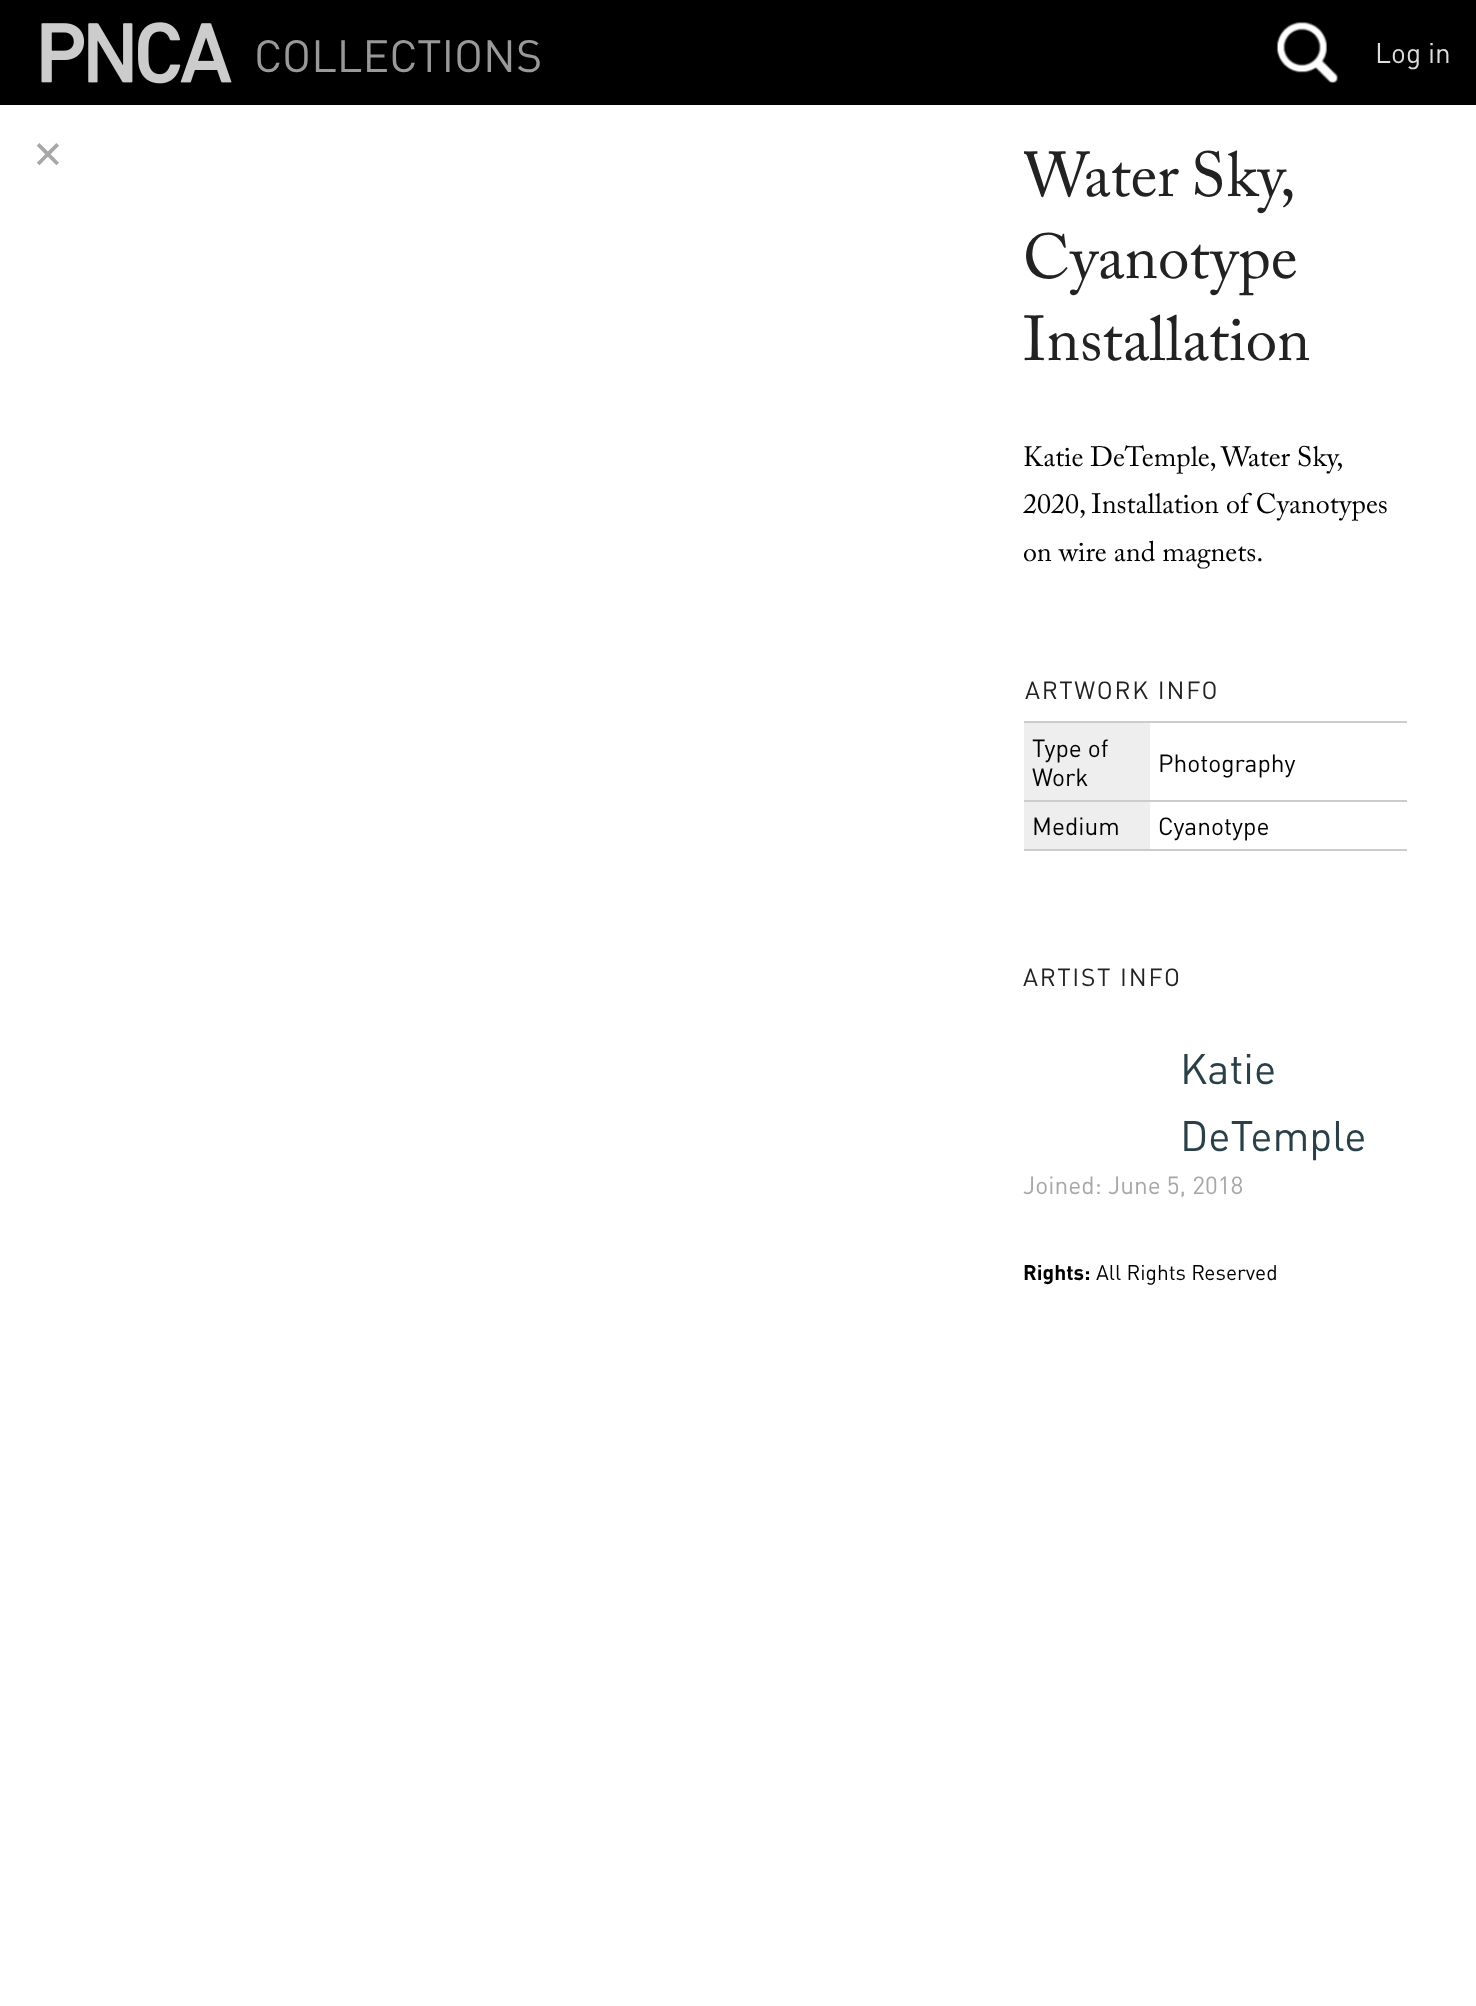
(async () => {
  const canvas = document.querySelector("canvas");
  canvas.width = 1476;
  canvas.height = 2006;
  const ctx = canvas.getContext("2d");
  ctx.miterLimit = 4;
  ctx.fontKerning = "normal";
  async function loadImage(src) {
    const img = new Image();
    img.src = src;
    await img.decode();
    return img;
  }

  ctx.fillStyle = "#ffffff";
  ctx.fillRect(0, 0, 1476, 2006);
  ctx.fillStyle = "#000000";
  ctx.fillRect(0, 0, 1476, 105);
  ctx.drawImage(await loadImage("img/1.png"), 41, 22, 191, 62);
  ctx.drawImage(await loadImage("img/2.png"), 1276, 22, 62, 61);
  for (const [x, y, w, h, color] of [
    [1024, 721, 383, 2, "#cccccc"],
    [1024, 723, 126, 77, "#eeeeee"],
    [1024, 800, 383, 2, "#cccccc"],
    [1024, 802, 126, 47, "#eeeeee"],
    [1024, 849, 383, 2, "#cccccc"],
  ]) {
    ctx.fillStyle = color;
    ctx.fillRect(x, y, w, h);
  }
  ctx.font = "44.75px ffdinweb";
  ctx.fillStyle = "#999999";
  ctx.fillText("COLLECTIONS", 254, 72);
  ctx.font = "28px ffdinweb";
  ctx.fillStyle = "#dddddd";
  ctx.fillText("Log in", 1375, 63);
  ctx.font = "38px DejaVu Sans";
  ctx.fillStyle = "#a7a7a7";
  ctx.fillText("✕", 32, 168);
  ctx.save();
  ctx.beginPath();
  ctx.rect(1024, 130, 383, 1176);
  ctx.clip();
  ctx.wordSpacing = "-4px";
  ctx.font = "63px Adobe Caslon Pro";
  ctx.fillStyle = "#222222";
  ctx.fillText("Water Sky,", 1023, 196);
  ctx.restore();
  ctx.font = "63px Adobe Caslon Pro";
  ctx.fillStyle = "#222222";
  ctx.fillText("Cyanotype", 1023, 278);
  ctx.fillText("Installation", 1023, 360);
  ctx.wordSpacing = "-0.5px";
  ctx.font = "28px Adobe Caslon Pro";
  ctx.fillStyle = "#000000";
  ctx.fillText("Katie DeTemple, Water Sky,", 1023, 466);
  ctx.wordSpacing = "0px";
  ctx.fillText("2020, Installation of Cyanotypes", 1023, 513);
  ctx.fillText("on wire and magnets.", 1023, 561);
  ctx.letterSpacing = "1.75px";
  ctx.font = "24.5px ffdinweb";
  ctx.fillStyle = "#222222";
  ctx.fillText("ARTWORK INFO", 1025, 699);
  ctx.letterSpacing = "0px";
  ctx.fillStyle = "#000000";
  for (const [text, x, y] of [
    ["Type of", 1032, 757],
    ["Work", 1032, 786],
    ["Photography", 1158, 772],
    ["Medium", 1032, 835],
    ["Cyanotype", 1158, 835],
  ]) {
    ctx.fillText(text, x, y);
  }
  ctx.letterSpacing = "1.75px";
  ctx.fillStyle = "#222222";
  ctx.fillText("ARTIST INFO", 1023, 986);
  ctx.letterSpacing = "0px";
  ctx.font = "42px ffdinweb";
  ctx.fillStyle = "#2a4048";
  ctx.fillText("Katie", 1180, 1084);
  ctx.fillText("DeTemple", 1180, 1151);
  ctx.font = "24.5px ffdinweb";
  ctx.fillStyle = "#a7a7a7";
  ctx.fillText("Joined: June 5, 2018", 1023, 1194);
  ctx.font = "bold 21px ffdinweb";
  ctx.fillStyle = "#000000";
  ctx.fillText("Rights:", 1023, 1280);
  ctx.font = "21px ffdinweb";
  ctx.fillText("All Rights Reserved", 1096, 1280);
})();
